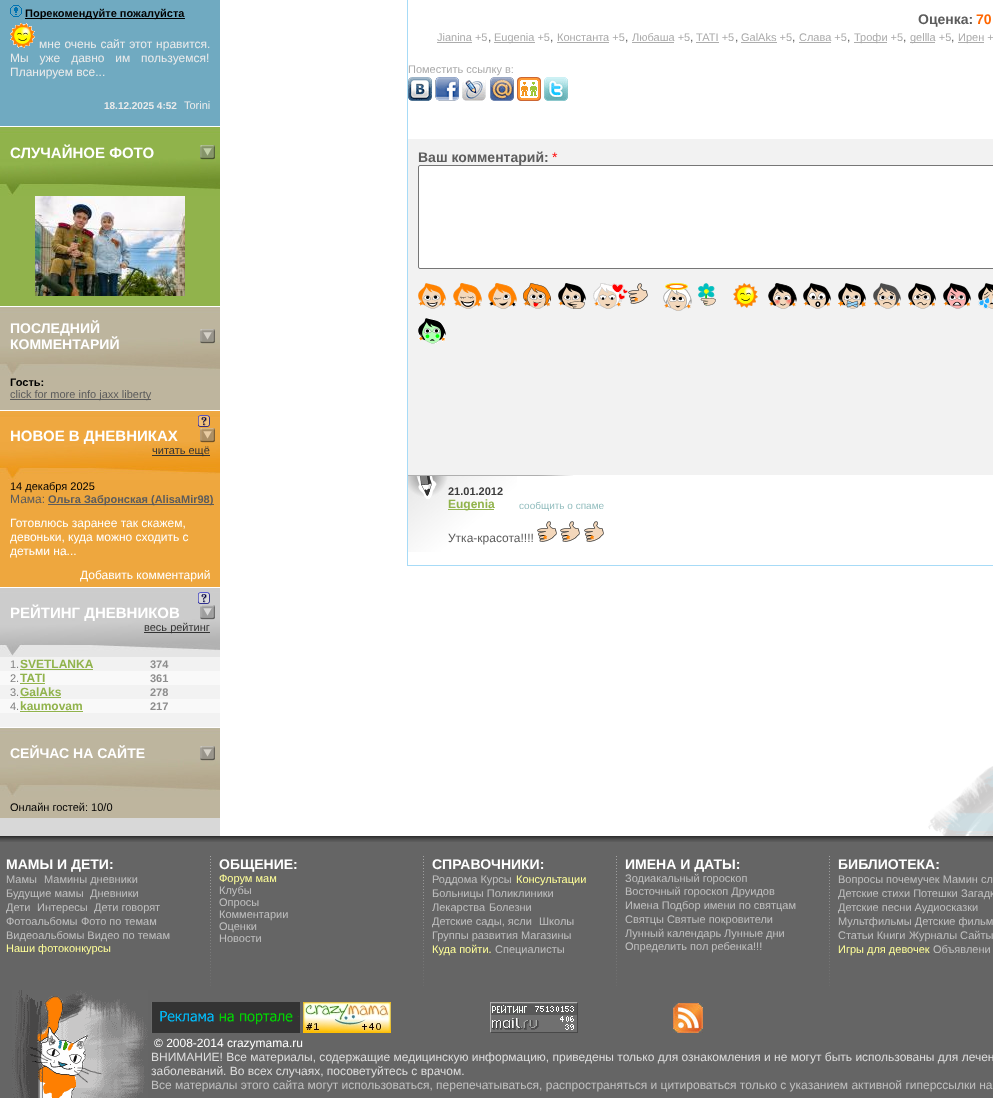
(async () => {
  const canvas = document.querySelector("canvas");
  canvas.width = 993;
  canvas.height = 1098;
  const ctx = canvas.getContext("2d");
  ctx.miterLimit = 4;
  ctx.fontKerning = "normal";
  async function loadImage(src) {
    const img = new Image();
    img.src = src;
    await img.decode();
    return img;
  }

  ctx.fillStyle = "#ffffff";
  ctx.fillRect(0, 0, 993, 1098);
  ctx.fillStyle = "#d8d8d8";
  ctx.fillRect(0, 818, 220, 18);
  ctx.fillStyle = "#70aac1";
  ctx.fillRect(0, 0, 220, 126);
  ctx.drawImage(await loadImage("img/1.png"), 10, 5, 12, 12);
  ctx.fillStyle = "#000000";
  ctx.fillRect(25, 18, 160, 1);
  ctx.drawImage(await loadImage("img/2.png"), 10, 23, 25, 25);
  ctx.drawImage(await loadImage("img/3.png"), 0, 126, 220, 70);
  ctx.drawImage(await loadImage("img/4.png"), 200, 145, 15, 15);
  ctx.fillStyle = "#91b34c";
  ctx.fillRect(0, 196, 220, 110);
  ctx.drawImage(await loadImage("img/5.png"), 35, 196, 150, 100);
  ctx.drawImage(await loadImage("img/6.png"), 0, 306, 220, 70);
  ctx.drawImage(await loadImage("img/7.png"), 200, 329, 15, 15);
  ctx.fillStyle = "#beb59e";
  ctx.fillRect(0, 376, 220, 34);
  ctx.fillStyle = "#5c5c5c";
  ctx.fillRect(10, 399, 141, 1);
  ctx.drawImage(await loadImage("img/8.png"), 0, 410, 220, 70);
  ctx.drawImage(await loadImage("img/9.png"), 198, 415, 12, 12);
  ctx.drawImage(await loadImage("img/10.png"), 200, 428, 15, 15);
  for (const [x, y, w, h, color] of [
    [152, 455, 58, 1, "#333333"],
    [0, 480, 220, 107, "#eea73e"],
    [48, 504, 166, 1, "#5c5c5c"],
  ]) {
    ctx.fillStyle = color;
    ctx.fillRect(x, y, w, h);
  }
  ctx.drawImage(await loadImage("img/11.png"), 0, 587, 220, 70);
  ctx.drawImage(await loadImage("img/12.png"), 198, 592, 12, 12);
  ctx.drawImage(await loadImage("img/13.png"), 200, 605, 15, 15);
  for (const [x, y, w, h, color] of [
    [144, 632, 66, 1, "#333333"],
    [0, 657, 220, 70, "#f2f2f2"],
    [20, 669, 73, 1, "#91b34c"],
    [0, 671, 220, 14, "#f9f9f9"],
    [20, 683, 25, 1, "#91b34c"],
    [20, 697, 41, 1, "#91b34c"],
    [0, 699, 220, 14, "#f9f9f9"],
    [20, 711, 63, 1, "#91b34c"],
  ]) {
    ctx.fillStyle = color;
    ctx.fillRect(x, y, w, h);
  }
  ctx.drawImage(await loadImage("img/6.png"), 0, 727, 220, 70);
  ctx.drawImage(await loadImage("img/14.png"), 200, 746, 15, 15);
  ctx.fillStyle = "#beb59e";
  ctx.fillRect(0, 797, 220, 21);
  ctx.drawImage(await loadImage("img/15.png"), 928, 766, 65, 70);
  ctx.strokeStyle = "#a7dbf7";
  ctx.strokeRect(407.5, -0.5, 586, 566);
  for (const [x, y, w, h, color] of [
    [437, 42, 35, 1, "#acacac"],
    [494, 42, 41, 1, "#acacac"],
    [557, 42, 52, 1, "#acacac"],
    [632, 42, 42, 1, "#acacac"],
    [696, 42, 23, 1, "#acacac"],
    [741, 42, 36, 1, "#acacac"],
    [799, 42, 32, 1, "#acacac"],
    [854, 42, 33, 1, "#acacac"],
    [910, 42, 25, 1, "#acacac"],
    [958, 42, 26, 1, "#acacac"],
  ]) {
    ctx.fillStyle = color;
    ctx.fillRect(x, y, w, h);
  }
  ctx.drawImage(await loadImage("img/16.png"), 408, 77, 24, 24);
  ctx.drawImage(await loadImage("img/17.png"), 435, 77, 24, 24);
  ctx.drawImage(await loadImage("img/18.png"), 462, 80, 24, 21);
  ctx.drawImage(await loadImage("img/19.png"), 490, 77, 24, 24);
  ctx.drawImage(await loadImage("img/20.png"), 517, 77, 24, 24);
  ctx.drawImage(await loadImage("img/21.png"), 544, 77, 24, 24);
  ctx.fillStyle = "#f2f2f2";
  ctx.fillRect(408, 139, 585, 336);
  ctx.fillStyle = "#ffffff";
  ctx.beginPath();
  ctx.roundRect(418.5, 165.5, 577, 103, 1.5);
  ctx.fill();
  ctx.strokeStyle = "#767676";
  ctx.stroke();
  ctx.drawImage(await loadImage("img/22.png"), 418, 283, 28, 26);
  ctx.drawImage(await loadImage("img/23.png"), 453, 283, 29, 26);
  ctx.drawImage(await loadImage("img/24.png"), 488, 283, 29, 26);
  ctx.drawImage(await loadImage("img/25.png"), 523, 283, 28, 26);
  ctx.drawImage(await loadImage("img/26.png"), 558, 283, 28, 26);
  ctx.drawImage(await loadImage("img/27.png"), 593, 283, 35, 26);
  ctx.drawImage(await loadImage("img/28.png"), 628, 283, 20, 21);
  ctx.drawImage(await loadImage("img/29.png"), 663, 283, 29, 28);
  ctx.drawImage(await loadImage("img/30.png"), 698, 283, 18, 23);
  ctx.drawImage(await loadImage("img/31.png"), 733, 283, 25, 25);
  ctx.drawImage(await loadImage("img/32.png"), 768, 283, 29, 26);
  ctx.drawImage(await loadImage("img/33.png"), 803, 283, 28, 26);
  ctx.drawImage(await loadImage("img/34.png"), 838, 283, 28, 26);
  ctx.drawImage(await loadImage("img/35.png"), 873, 283, 28, 26);
  ctx.drawImage(await loadImage("img/36.png"), 908, 283, 28, 26);
  ctx.drawImage(await loadImage("img/37.png"), 943, 283, 28, 26);
  ctx.drawImage(await loadImage("img/38.png"), 978, 283, 15, 26);
  ctx.drawImage(await loadImage("img/39.png"), 418, 318, 28, 26);
  ctx.drawImage(await loadImage("img/40.png"), 408, 475, 165, 77);
  ctx.fillStyle = "#91b34c";
  ctx.fillRect(448, 509, 46, 1);
  ctx.drawImage(await loadImage("img/41.png"), 537, 521, 20, 21);
  ctx.drawImage(await loadImage("img/41.png"), 560, 521, 20, 21);
  ctx.drawImage(await loadImage("img/41.png"), 584, 521, 20, 21);
  ctx.fillStyle = "#656565";
  ctx.fillRect(0, 842, 993, 256);
  ctx.drawImage(await loadImage("img/42.png"), 0, 836, 993, 6);
  ctx.drawImage(await loadImage("img/43.png"), 210, 856, 1, 130);
  ctx.drawImage(await loadImage("img/43.png"), 423, 856, 1, 130);
  ctx.drawImage(await loadImage("img/43.png"), 616, 856, 1, 130);
  ctx.drawImage(await loadImage("img/43.png"), 829, 856, 1, 130);
  ctx.drawImage(await loadImage("img/44.png"), 12, 990, 136, 108);
  ctx.drawImage(await loadImage("img/45.png"), 151, 1002, 149, 31);
  ctx.drawImage(await loadImage("img/46.png"), 303, 1002, 88, 31);
  ctx.drawImage(await loadImage("img/47.png"), 490, 1002, 88, 31);
  ctx.drawImage(await loadImage("img/48.png"), 673, 1003, 30, 30);
  ctx.font = "bold 11px Liberation Sans";
  ctx.fillStyle = "#000000";
  ctx.fillText("Порекомендуйте пожалуйста", 25, 17);
  ctx.wordSpacing = "0.5px";
  ctx.font = "12px Liberation Sans";
  ctx.fillStyle = "#ebebeb";
  ctx.fillText("мне очень сайт этот нравится.", 39, 48);
  ctx.wordSpacing = "7.5px";
  ctx.fillText("Мы уже давно им пользуемся!", 10, 62);
  ctx.wordSpacing = "0px";
  ctx.fillText("Планируем все...", 10, 76);
  ctx.font = "bold 10px Liberation Sans";
  ctx.fillText("18.12.2025 4:52", 104, 109);
  ctx.font = "11px Liberation Sans";
  ctx.fillText("Torini", 184, 109);
  ctx.font = "bold 15px Liberation Sans";
  ctx.fillStyle = "#ffffff";
  ctx.fillText("СЛУЧАЙНОЕ ФОТО", 10, 158);
  ctx.font = "bold 14px Liberation Sans";
  ctx.fillText("ПОСЛЕДНИЙ", 10, 333);
  ctx.fillText("КОММЕНТАРИЙ", 10, 349);
  ctx.font = "bold 11px Liberation Sans";
  ctx.fillStyle = "#000000";
  ctx.fillText("Гость:", 10, 386);
  ctx.font = "11px Liberation Sans";
  ctx.fillStyle = "#5c5c5c";
  ctx.fillText("click for more info jaxx liberty", 10, 398);
  ctx.font = "bold 15px Liberation Sans";
  ctx.fillStyle = "#ffffff";
  ctx.fillText("НОВОЕ В ДНЕВНИКАХ", 10, 441);
  ctx.font = "11px Liberation Sans";
  ctx.fillStyle = "#333333";
  ctx.fillText("читать ещё", 152, 454);
  ctx.fillStyle = "#000000";
  ctx.fillText("14 декабря 2025", 10, 490);
  ctx.font = "12px Liberation Sans";
  ctx.fillStyle = "#5c5c5c";
  ctx.fillText("Мама:", 10, 503);
  ctx.font = "bold 11px Liberation Sans";
  ctx.fillText("Ольга Забронская (AlisaMir98)", 48, 503);
  ctx.font = "12px Liberation Sans";
  ctx.fillStyle = "#ffffff";
  for (const [text, x, y] of [
    ["Готовлюсь заранее так скажем,", 10, 527],
    ["девоньки, куда можно сходить с", 10, 541],
    ["детьми на...", 10, 555],
    ["Добавить комментарий", 80, 579],
  ]) {
    ctx.fillText(text, x, y);
  }
  ctx.font = "bold 15px Liberation Sans";
  ctx.fillText("РЕЙТИНГ ДНЕВНИКОВ", 10, 618);
  ctx.font = "11px Liberation Sans";
  ctx.fillStyle = "#333333";
  ctx.fillText("весь рейтинг", 144, 631);
  ctx.fillStyle = "#808080";
  ctx.fillText("1.", 10, 668);
  ctx.font = "bold 12px Liberation Sans";
  ctx.fillStyle = "#91b34c";
  ctx.fillText("SVETLANKA", 20, 668);
  ctx.font = "bold 11px Liberation Sans";
  ctx.fillStyle = "#8d8d8d";
  ctx.fillText("374", 150, 668);
  ctx.font = "11px Liberation Sans";
  ctx.fillStyle = "#808080";
  ctx.fillText("2.", 10, 682);
  ctx.font = "bold 12px Liberation Sans";
  ctx.fillStyle = "#91b34c";
  ctx.fillText("ТАТI", 20, 682);
  ctx.font = "bold 11px Liberation Sans";
  ctx.fillStyle = "#8d8d8d";
  ctx.fillText("361", 150, 682);
  ctx.font = "11px Liberation Sans";
  ctx.fillStyle = "#808080";
  ctx.fillText("3.", 10, 696);
  ctx.font = "bold 12px Liberation Sans";
  ctx.fillStyle = "#91b34c";
  ctx.fillText("GalAks", 20, 696);
  ctx.font = "bold 11px Liberation Sans";
  ctx.fillStyle = "#8d8d8d";
  ctx.fillText("278", 150, 696);
  ctx.font = "11px Liberation Sans";
  ctx.fillStyle = "#808080";
  ctx.fillText("4.", 10, 710);
  ctx.font = "bold 12px Liberation Sans";
  ctx.fillStyle = "#91b34c";
  ctx.fillText("kaumovam", 20, 710);
  ctx.font = "bold 11px Liberation Sans";
  ctx.fillStyle = "#8d8d8d";
  ctx.fillText("217", 150, 710);
  ctx.font = "bold 14px Liberation Sans";
  ctx.fillStyle = "#ffffff";
  ctx.fillText("СЕЙЧАС НА САЙТЕ", 10, 758);
  ctx.font = "11px Liberation Sans";
  ctx.fillStyle = "#000000";
  ctx.fillText("Онлайн гостей: 10/0", 10, 811);
  ctx.font = "bold 14px Liberation Sans";
  ctx.fillStyle = "#5c5c5c";
  ctx.fillText("Оценка:", 918, 24);
  ctx.fillStyle = "#ff6600";
  ctx.fillText("70", 976, 24);
  ctx.font = "11px Liberation Sans";
  ctx.fillStyle = "#aaaaaa";
  ctx.fillText("Jianina +5", 437, 41);
  ctx.font = "12px Liberation Sans";
  ctx.fillStyle = "#5c5c5c";
  ctx.fillText(",", 488, 41);
  ctx.font = "11px Liberation Sans";
  ctx.fillStyle = "#aaaaaa";
  ctx.fillText("Eugenia +5", 494, 41);
  ctx.font = "12px Liberation Sans";
  ctx.fillStyle = "#5c5c5c";
  ctx.fillText(",", 550, 41);
  ctx.font = "11px Liberation Sans";
  ctx.fillStyle = "#aaaaaa";
  ctx.fillText("Константа +5", 557, 41);
  ctx.font = "12px Liberation Sans";
  ctx.fillStyle = "#5c5c5c";
  ctx.fillText(",", 625, 41);
  ctx.font = "11px Liberation Sans";
  ctx.fillStyle = "#aaaaaa";
  ctx.fillText("Любаша +5", 632, 41);
  ctx.font = "12px Liberation Sans";
  ctx.fillStyle = "#5c5c5c";
  ctx.fillText(",", 690, 41);
  ctx.font = "11px Liberation Sans";
  ctx.fillStyle = "#aaaaaa";
  ctx.fillText("ТАТI +5", 696, 41);
  ctx.font = "12px Liberation Sans";
  ctx.fillStyle = "#5c5c5c";
  ctx.fillText(",", 735, 41);
  ctx.font = "11px Liberation Sans";
  ctx.fillStyle = "#aaaaaa";
  ctx.fillText("GalAks +5", 741, 41);
  ctx.font = "12px Liberation Sans";
  ctx.fillStyle = "#5c5c5c";
  ctx.fillText(",", 792, 41);
  ctx.font = "11px Liberation Sans";
  ctx.fillStyle = "#aaaaaa";
  ctx.fillText("Слава +5", 799, 41);
  ctx.font = "12px Liberation Sans";
  ctx.fillStyle = "#5c5c5c";
  ctx.fillText(",", 847, 41);
  ctx.font = "11px Liberation Sans";
  ctx.fillStyle = "#aaaaaa";
  ctx.fillText("Трофи +5", 854, 41);
  ctx.font = "12px Liberation Sans";
  ctx.fillStyle = "#5c5c5c";
  ctx.fillText(",", 903, 41);
  ctx.font = "11px Liberation Sans";
  ctx.fillStyle = "#aaaaaa";
  ctx.fillText("gellla +5", 910, 41);
  ctx.font = "12px Liberation Sans";
  ctx.fillStyle = "#5c5c5c";
  ctx.fillText(",", 951, 41);
  ctx.font = "11px Liberation Sans";
  ctx.fillStyle = "#aaaaaa";
  ctx.fillText("Ирен +", 958, 41);
  ctx.fillText("Поместить ссылку в:", 408, 73);
  ctx.font = "bold 14px Liberation Sans";
  ctx.fillStyle = "#5c5c5c";
  ctx.fillText("Ваш комментарий:", 418, 162);
  ctx.font = "14px Liberation Sans";
  ctx.fillStyle = "#ff0000";
  ctx.fillText("*", 552, 162);
  ctx.font = "bold 11px Liberation Sans";
  ctx.fillStyle = "#3b3b3b";
  ctx.fillText("21.01.2012", 448, 495);
  ctx.font = "bold 12px Liberation Sans";
  ctx.fillStyle = "#91b34c";
  ctx.fillText("Eugenia", 448, 508);
  ctx.font = "10px Liberation Sans";
  ctx.fillStyle = "#92bdbe";
  ctx.fillText("сообщить о спаме", 519, 509);
  ctx.font = "12px Liberation Sans";
  ctx.fillStyle = "#5c5c5c";
  ctx.fillText("Утка-красота!!!!", 448, 542);
  ctx.font = "bold 14px Liberation Sans";
  ctx.fillStyle = "#ffffff";
  ctx.fillText("МАМЫ И ДЕТИ:", 6, 869);
  ctx.font = "11px Liberation Sans";
  ctx.fillStyle = "#c0c0c0";
  for (const [text, x, y] of [
    ["Мамы", 6, 883],
    ["Мамины дневники", 44, 883],
    ["Будущие мамы", 6, 897],
    ["Дневники", 90, 897],
    ["Дети", 6, 911],
    ["Интересы", 37, 911],
    ["Дети говорят", 94, 911],
    ["Фотоальбомы", 6, 925],
    ["Фото по темам", 81, 925],
    ["Видеоальбомы Видео по темам", 6, 939],
  ]) {
    ctx.fillText(text, x, y);
  }
  ctx.fillStyle = "#ffff99";
  ctx.fillText("Наши фотоконкурсы", 6, 952);
  ctx.font = "bold 14px Liberation Sans";
  ctx.fillStyle = "#ffffff";
  ctx.fillText("ОБЩЕНИЕ:", 219, 869);
  ctx.font = "11px Liberation Sans";
  ctx.fillStyle = "#ffff99";
  ctx.fillText("Форум мам", 219, 882);
  ctx.fillStyle = "#c0c0c0";
  for (const [text, x, y] of [
    ["Клубы", 219, 894],
    ["Опросы", 219, 906],
    ["Комментарии", 219, 918],
    ["Оценки", 219, 930],
    ["Новости", 219, 942],
  ]) {
    ctx.fillText(text, x, y);
  }
  ctx.font = "bold 14px Liberation Sans";
  ctx.fillStyle = "#ffffff";
  ctx.fillText("СПРАВОЧНИКИ:", 432, 869);
  ctx.font = "11px Liberation Sans";
  ctx.fillStyle = "#c0c0c0";
  ctx.fillText("Роддома Курсы", 432, 883);
  ctx.fillStyle = "#ffff99";
  ctx.fillText("Консультации", 516, 883);
  ctx.fillStyle = "#c0c0c0";
  for (const [text, x, y] of [
    ["Больницы Поликлиники", 432, 897],
    ["Лекарства", 432, 911],
    ["Болезни", 489, 911],
    ["Детские сады, ясли", 432, 925],
    ["Школы", 539, 925],
    ["Группы развития Магазины", 432, 939],
  ]) {
    ctx.fillText(text, x, y);
  }
  ctx.fillStyle = "#ffff99";
  ctx.fillText("Куда пойти.", 432, 953);
  ctx.fillStyle = "#c0c0c0";
  ctx.fillText("Специалисты", 495, 953);
  ctx.font = "bold 14px Liberation Sans";
  ctx.fillStyle = "#ffffff";
  ctx.fillText("ИМЕНА И ДАТЫ:", 625, 869);
  ctx.font = "11px Liberation Sans";
  ctx.fillStyle = "#c0c0c0";
  for (const [text, x, y] of [
    ["Зодиакальный гороскоп", 625, 882],
    ["Восточный гороскоп Друидов", 625, 895],
    ["Имена Подбор имени по святцам", 625, 909],
    ["Святцы Святые покровители", 625, 923],
    ["Лунный календарь", 625, 937],
    ["Лунные дни", 724, 937],
    ["Определить пол ребенка!!!", 625, 950],
  ]) {
    ctx.fillText(text, x, y);
  }
  ctx.font = "bold 14px Liberation Sans";
  ctx.fillStyle = "#ffffff";
  ctx.fillText("БИБЛИОТЕКА:", 838, 869);
  ctx.font = "11px Liberation Sans";
  ctx.fillStyle = "#c0c0c0";
  for (const [text, x, y] of [
    ["Вопросы почемучек Мамин сл", 838, 883],
    ["Детские стихи Потешки", 838, 897],
    ["Загадк", 961, 897],
    ["Детские песни Аудиосказки", 838, 911],
    ["Мультфильмы Детские фильм", 838, 925],
    ["Статьи Книги", 838, 939],
    ["Журналы Сайты", 909, 939],
  ]) {
    ctx.fillText(text, x, y);
  }
  ctx.fillStyle = "#ffff99";
  ctx.fillText("Игры для девочек", 838, 953);
  ctx.fillStyle = "#c0c0c0";
  ctx.fillText("Объявлени", 933, 953);
  ctx.font = "12px Liberation Sans";
  ctx.fillStyle = "#ffffff";
  ctx.fillText("© 2008-2014 crazymama.ru", 154, 1047);
  ctx.fillStyle = "#dddddd";
  ctx.fillText("ВНИМАНИЕ! Все материалы, содержащие медицинскую информацию, приведены только для ознакомления и не могут быть использованы для лечен", 151, 1061);
  ctx.fillText("заболеваний. Во всех случаях, посоветуйтесь с врачом.", 151, 1075);
  ctx.fillStyle = "#c0c0c0";
  ctx.fillText("Все материалы этого сайта могут использоваться, перепечатываться, распространяться и цитироваться только с указанием активной гиперссылки на", 151, 1089);
})();
